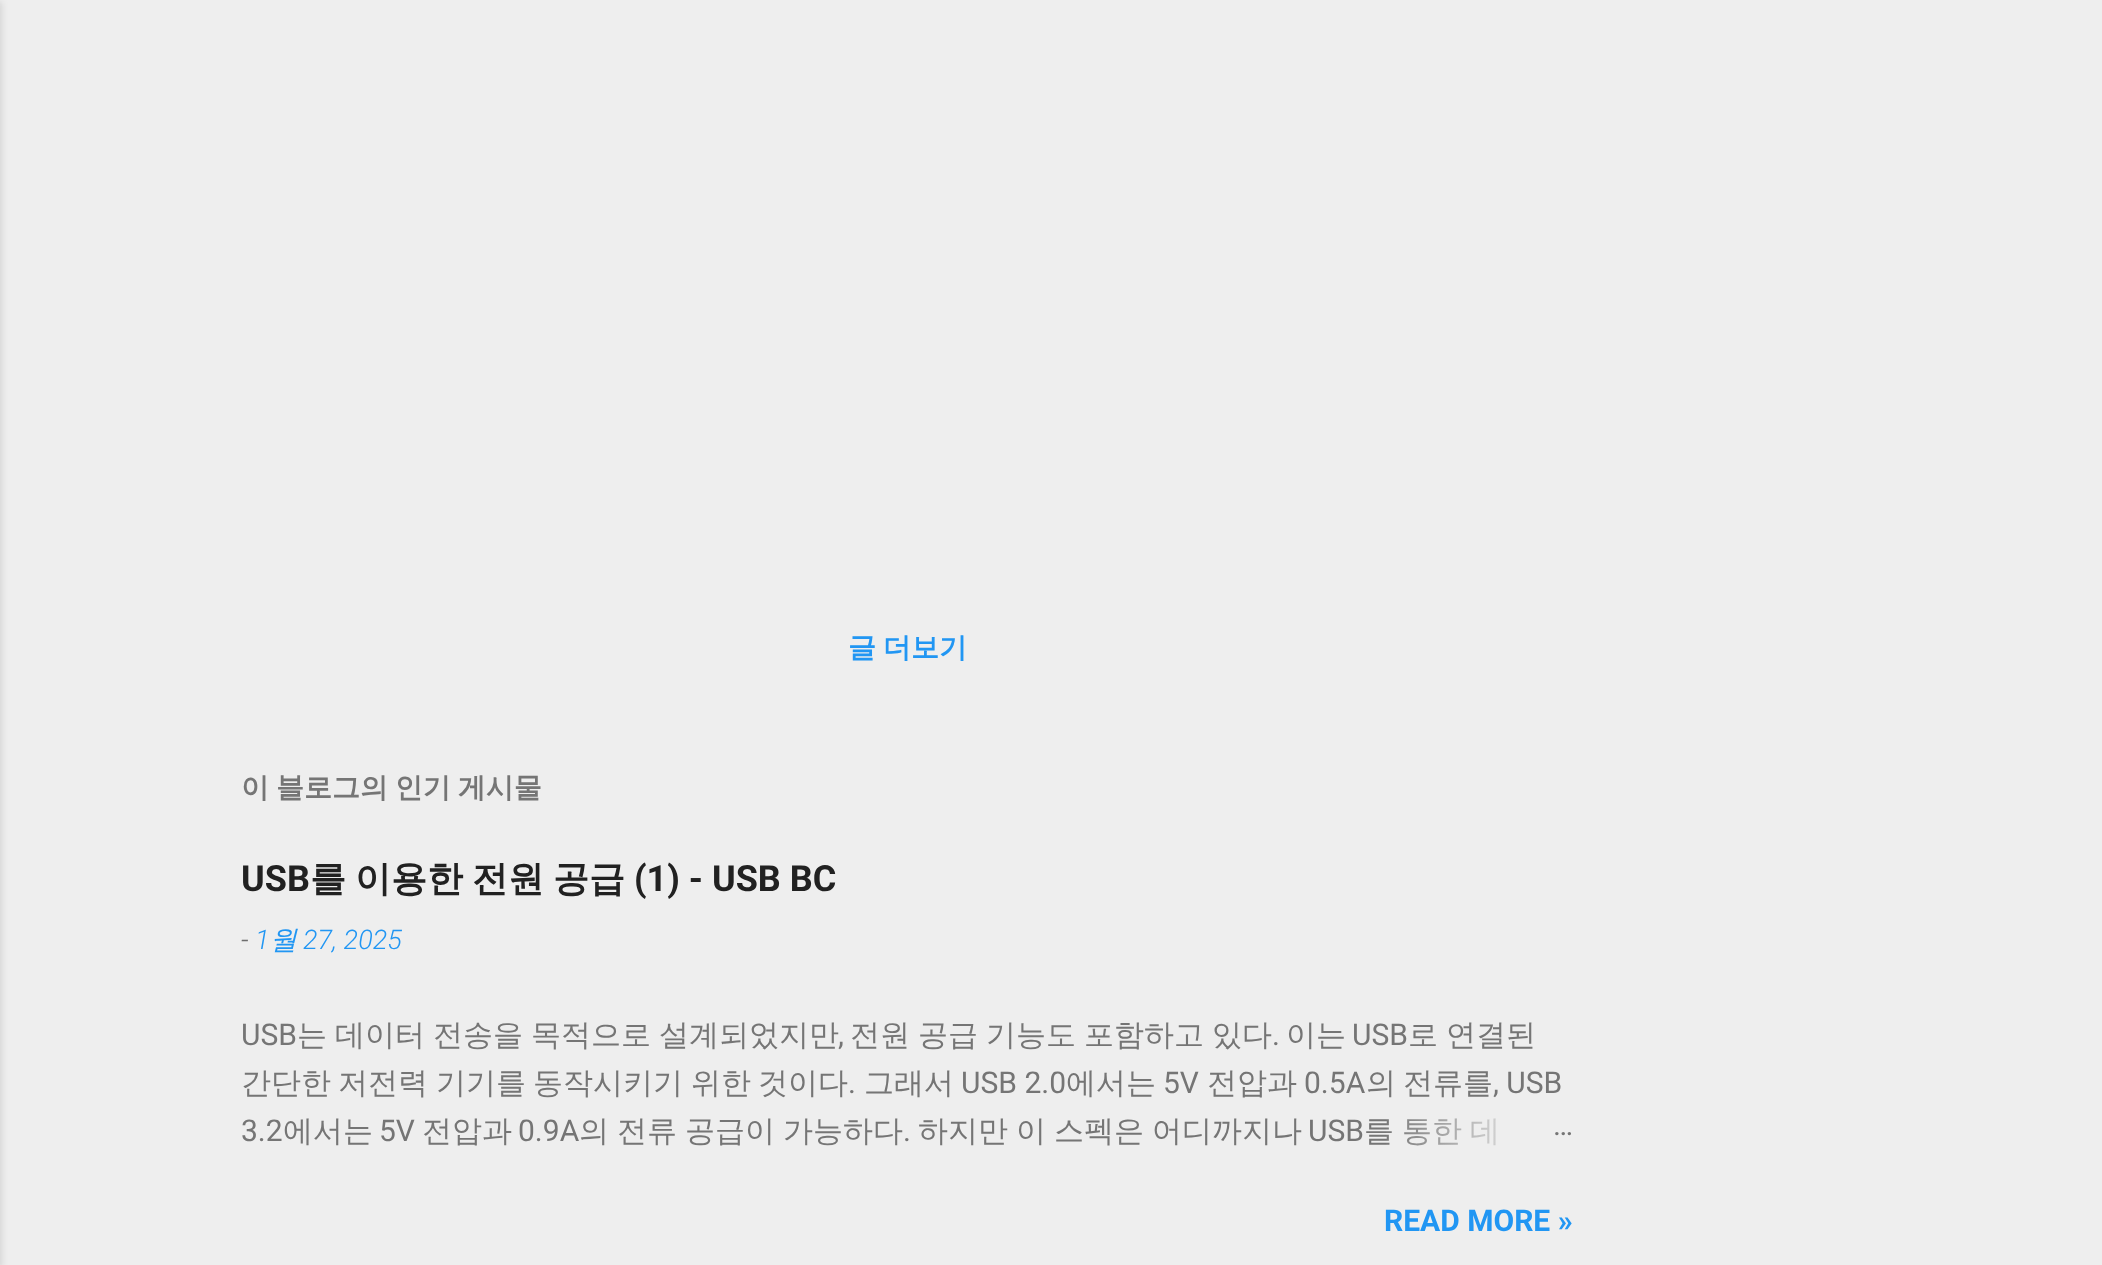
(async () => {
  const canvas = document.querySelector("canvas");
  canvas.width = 2102;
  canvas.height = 1265;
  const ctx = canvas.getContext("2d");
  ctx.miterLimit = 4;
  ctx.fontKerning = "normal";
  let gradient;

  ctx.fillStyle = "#eeeeee";
  ctx.fillRect(0, 0, 2102, 1265);
  ctx.fillStyle = "rgba(0, 0, 0, 0.1)";
  ctx.filter = "blur(3px)";
  ctx.beginPath();
  ctx.rect(-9, 2, 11, 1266);
  ctx.fill();
  ctx.filter = "none";
  ctx.wordSpacing = "-1.5px";
  ctx.font = "bold 28px WenQuanYi Zen Hei";
  ctx.fillStyle = "#2196f3";
  ctx.fillText("글 더보기", 848, 657);
  ctx.fillStyle = "#757575";
  ctx.fillText("이 블로그의 인기 게시물", 241, 797);
  ctx.wordSpacing = "0px";
  ctx.font = "bold 36px Roboto";
  ctx.fillStyle = "#212121";
  ctx.fillText("USB", 241, 891);
  ctx.font = "bold 36px WenQuanYi Zen Hei";
  for (const [text, x, y] of [
    ["를", 310, 891],
    ["이용한", 355, 891],
    ["전원", 472, 891],
    ["공급", 553, 891],
  ]) {
    ctx.fillText(text, x, y);
  }
  ctx.font = "bold 36px Roboto";
  ctx.fillText("(1) - USB BC", 634, 891);
  ctx.font = "italic 300 27px Roboto";
  ctx.fillStyle = "#6d6d6d";
  ctx.fillText("-", 241, 949);
  ctx.fillStyle = "#2196f3";
  ctx.fillText("1", 255, 949);
  ctx.font = "italic 500 27px WenQuanYi Zen Hei";
  ctx.fillText("월", 270, 949);
  ctx.font = "italic 300 27px Roboto";
  ctx.fillText("27, 2025", 303, 949);
  ctx.font = "30px Roboto";
  ctx.fillStyle = "#757575";
  ctx.fillText("USB", 241, 1045);
  ctx.wordSpacing = "-1px";
  ctx.font = "500 30px WenQuanYi Zen Hei";
  ctx.fillText("는 데이터 전송을 목적으로 설계되었지만", 297, 1045);
  ctx.wordSpacing = "0px";
  ctx.font = "30px Roboto";
  ctx.fillText(",", 838, 1045);
  ctx.wordSpacing = "-1px";
  ctx.font = "500 30px WenQuanYi Zen Hei";
  ctx.fillText("전원 공급 기능도 포함하고 있다", 850, 1045);
  ctx.wordSpacing = "0px";
  ctx.font = "30px Roboto";
  ctx.fillText(".", 1272, 1045);
  ctx.font = "500 30px WenQuanYi Zen Hei";
  ctx.fillText("이는", 1286, 1045);
  ctx.font = "30px Roboto";
  ctx.fillText("USB", 1352, 1045);
  ctx.wordSpacing = "-1px";
  ctx.font = "500 30px WenQuanYi Zen Hei";
  ctx.fillText("로 연결된", 1408, 1045);
  ctx.wordSpacing = "0px";
  for (const [text, x, y] of [
    ["간단한", 241, 1093],
    ["저전력", 338, 1093],
    ["기기를", 436, 1093],
    ["동작시키기", 533, 1093],
    ["위한", 691, 1093],
    ["것이다", 758, 1093],
  ]) {
    ctx.fillText(text, x, y);
  }
  ctx.font = "30px Roboto";
  ctx.fillText(".", 848, 1093);
  ctx.font = "500 30px WenQuanYi Zen Hei";
  ctx.fillText("그래서", 864, 1093);
  ctx.font = "30px Roboto";
  ctx.fillText("USB 2.0", 961, 1093);
  ctx.font = "500 30px WenQuanYi Zen Hei";
  ctx.fillText("에서는", 1066, 1093);
  ctx.font = "30px Roboto";
  ctx.fillText("5V", 1163, 1093);
  ctx.font = "500 30px WenQuanYi Zen Hei";
  ctx.fillText("전압과", 1207, 1093);
  ctx.font = "30px Roboto";
  ctx.fillText("0.5A", 1304, 1093);
  ctx.font = "500 30px WenQuanYi Zen Hei";
  ctx.fillText("의", 1366, 1093);
  ctx.fillText("전류를", 1403, 1093);
  ctx.font = "30px Roboto";
  ctx.fillText(", USB", 1493, 1093);
  ctx.fillText("3.2", 241, 1141);
  ctx.font = "500 30px WenQuanYi Zen Hei";
  ctx.fillText("에서는", 283, 1141);
  ctx.font = "30px Roboto";
  ctx.fillText("5V", 379, 1141);
  ctx.font = "500 30px WenQuanYi Zen Hei";
  ctx.fillText("전압과", 422, 1141);
  ctx.font = "30px Roboto";
  ctx.fillText("0.9A", 518, 1141);
  ctx.wordSpacing = "-1px";
  ctx.font = "500 30px WenQuanYi Zen Hei";
  ctx.fillText("의 전류 공급이 가능하다", 579, 1141);
  ctx.wordSpacing = "0px";
  ctx.font = "30px Roboto";
  ctx.fillText(".", 903, 1141);
  ctx.wordSpacing = "-1px";
  ctx.font = "500 30px WenQuanYi Zen Hei";
  ctx.fillText("하지만 이 스펙은 어디까지나", 918, 1141);
  ctx.wordSpacing = "0px";
  ctx.font = "30px Roboto";
  ctx.fillText("USB", 1308, 1141);
  ctx.wordSpacing = "-1px";
  ctx.font = "500 30px WenQuanYi Zen Hei";
  ctx.fillText("를 통한 데", 1364, 1141);
  gradient = ctx.createLinearGradient(1574, 1130, 1382, 1130);
  gradient.addColorStop(0, "#eeeeee");
  gradient.addColorStop(0.2, "#eeeeee");
  gradient.addColorStop(1, "rgba(238, 238, 238, 0)");
  ctx.fillStyle = gradient;
  ctx.fillRect(1386, 1118, 111, 28);
  ctx.wordSpacing = "0px";
  ctx.font = "30px Roboto";
  ctx.fillStyle = "#757575";
  ctx.fillText("…", 1553, 1135);
  ctx.font = "bold 30px Roboto";
  ctx.fillStyle = "#2196f3";
  ctx.fillText("READ MORE »", 1384, 1231);
})();
